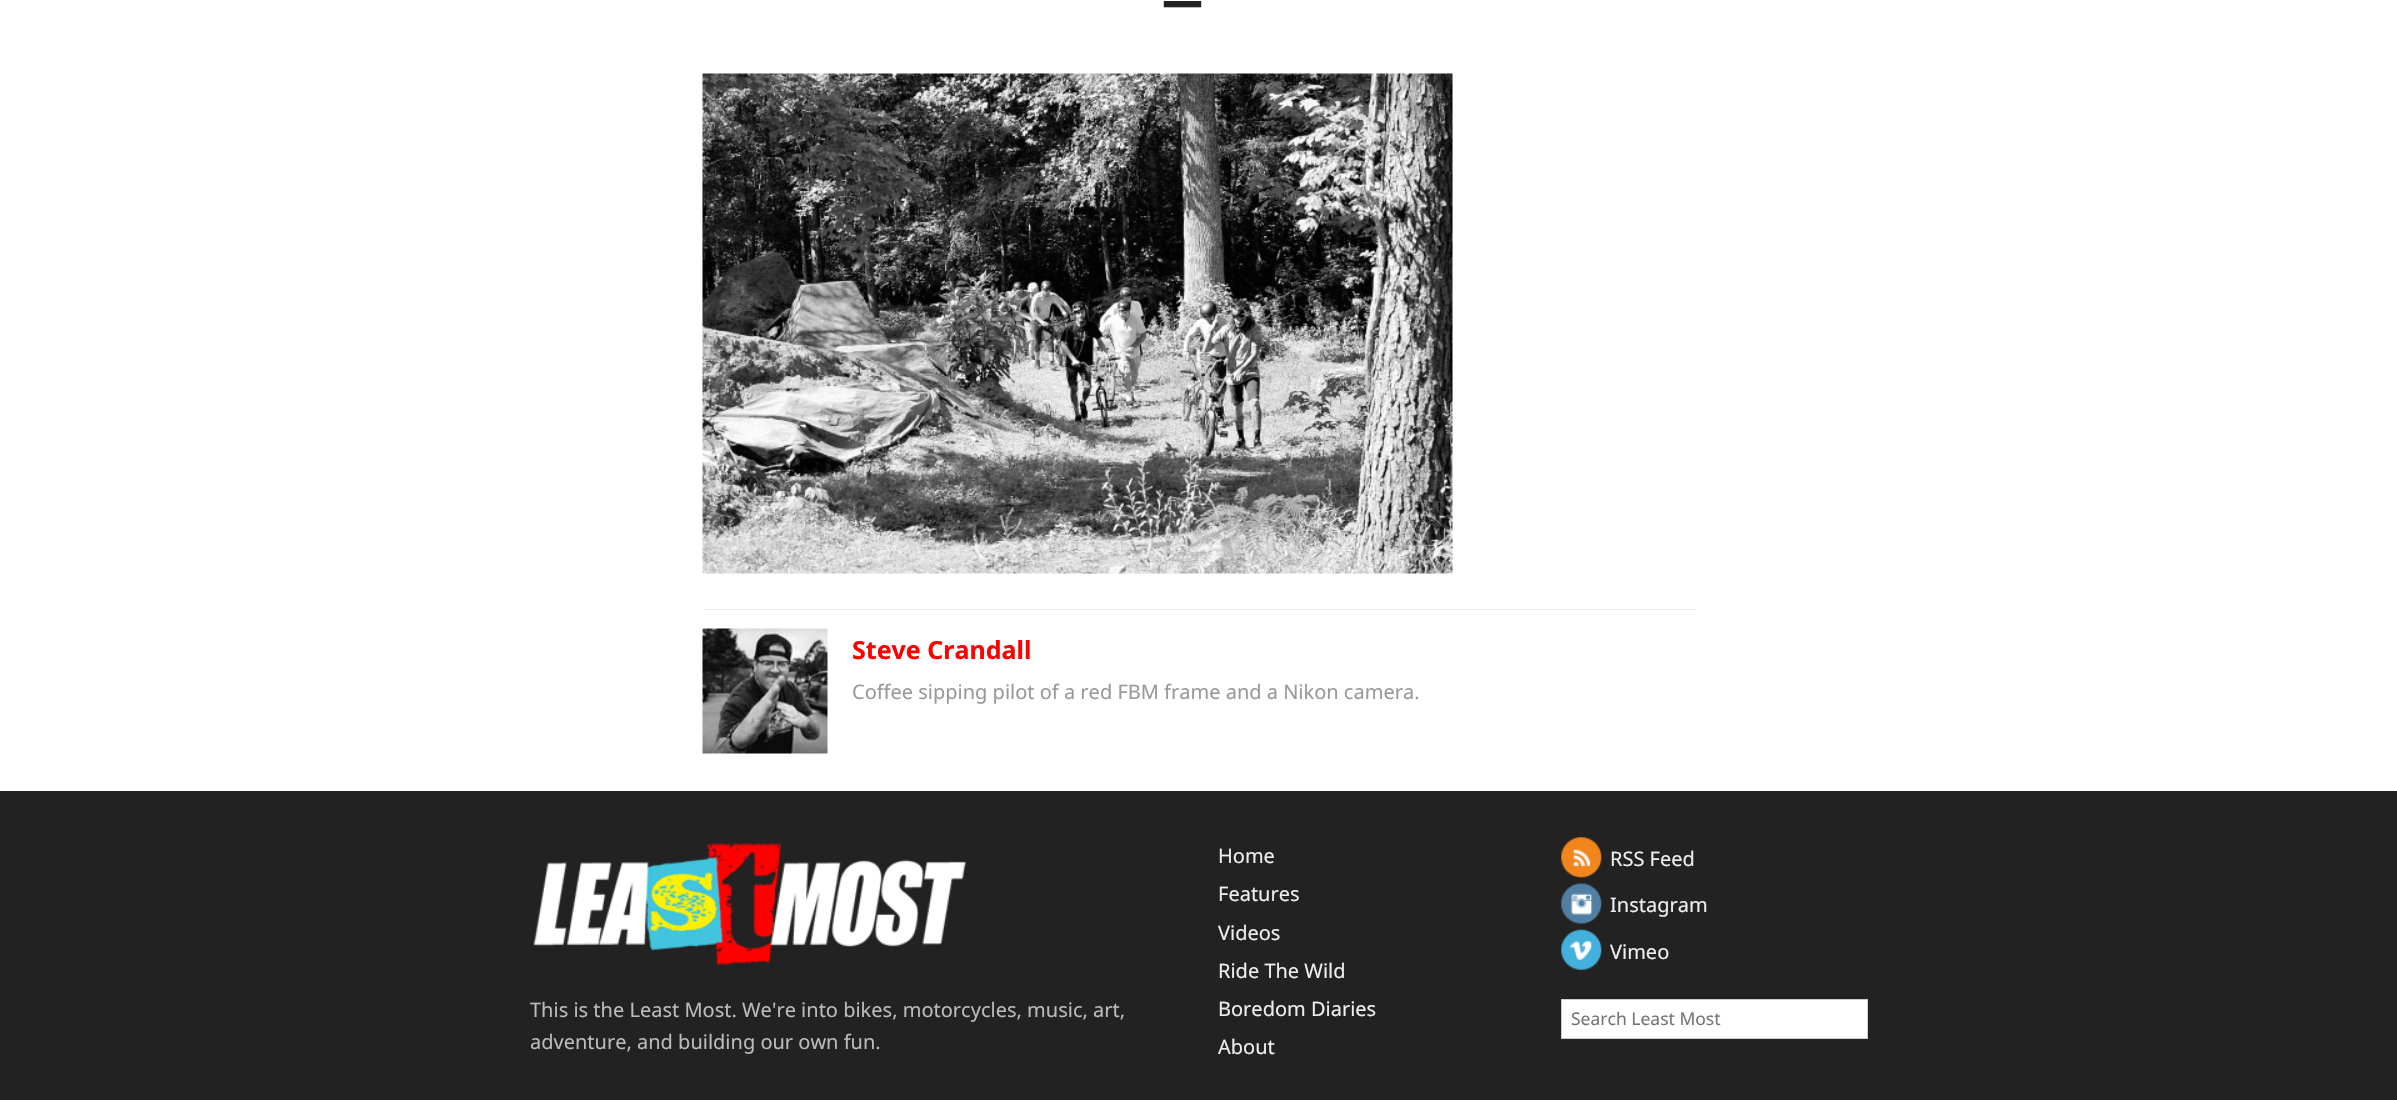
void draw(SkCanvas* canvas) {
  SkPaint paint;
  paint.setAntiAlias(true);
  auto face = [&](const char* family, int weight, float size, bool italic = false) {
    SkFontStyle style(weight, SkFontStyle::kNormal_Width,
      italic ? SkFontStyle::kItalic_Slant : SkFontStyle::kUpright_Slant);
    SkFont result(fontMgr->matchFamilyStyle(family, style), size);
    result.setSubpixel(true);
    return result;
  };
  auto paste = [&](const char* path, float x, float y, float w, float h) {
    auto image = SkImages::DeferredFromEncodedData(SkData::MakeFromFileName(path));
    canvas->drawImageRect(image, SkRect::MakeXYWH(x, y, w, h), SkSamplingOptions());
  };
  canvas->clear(0xffffffff);
  paste("img/1.png", 702, 73, 751, 501);
  paint.setColor(0xffeeeeee);
  canvas->drawRect(SkRect::MakeXYWH(703, 609, 993, 1), paint);
  paste("img/2.png", 702, 628, 126, 126);
  paint.setColor(0xff222222);
  canvas->drawRect(SkRect::MakeXYWH(0, 791, 2397, 309), paint);
  paste("img/3.png", 533, 843, 434, 122);
  paste("img/4.png", 1561, 837, 41, 41);
  paste("img/5.png", 1561, 883, 41, 41);
  paste("img/6.png", 1561, 929, 41, 41);
  paint.setColor(0xffffffff);
  canvas->drawRect(SkRect::MakeXYWH(1561.5f, 999.5f, 306, 39), paint);
  paint.setStroke(true);
  paint.setStrokeWidth(1);
  paint.setColor(0xffcccccc);
  canvas->drawRect(SkRect::MakeXYWH(1561.5f, 999.5f, 306, 39), paint);
  auto f0 = face("Noto Sans", 700, 90);
  paint.setStroke(false);
  paint.setColor(0xff222222);
  canvas->drawString("_", 1164, -7, f0, paint);
  auto f1 = face("Noto Sans", 700, 25);
  paint.setColor(0xffff0000);
  canvas->drawString("Steve Crandall", 852, 659, f1, paint);
  auto f2 = face("Noto Sans", 400, 20);
  paint.setColor(0xff999999);
  canvas->drawString("Coffee sipping pilot of a red FBM frame and a Nikon camera.", 852, 699, f2, paint);
  paint.setColor(0xffbbbbbb);
  canvas->drawString("This is the Least Most. We're into bikes, motorcycles, music, art,", 530, 1017, f2, paint);
  canvas->drawString("adventure, and building our own fun.", 530, 1049, f2, paint);
  paint.setColor(0xffeeeeee);
  {
    const struct { const char* s; float x, y; } items[] = {
      {"Home", 1218, 863},
      {"Features", 1218, 901},
      {"Videos", 1218, 940},
      {"Ride The Wild", 1218, 978},
      {"Boredom Diaries", 1218, 1016},
      {"About", 1218, 1054},
      {"RSS Feed", 1610, 866},
      {"Instagram", 1610, 912},
      {"Vimeo", 1610, 959},
    };
    for (auto [s, x, y] : items) {
      canvas->drawString(s, x, y, f2, paint);
    }
  }
  auto f3 = face("Noto Sans", 400, 17.5f);
  paint.setColor(0xff757575);
  canvas->drawString("Search Least Most", 1571, 1025, f3, paint);
}
